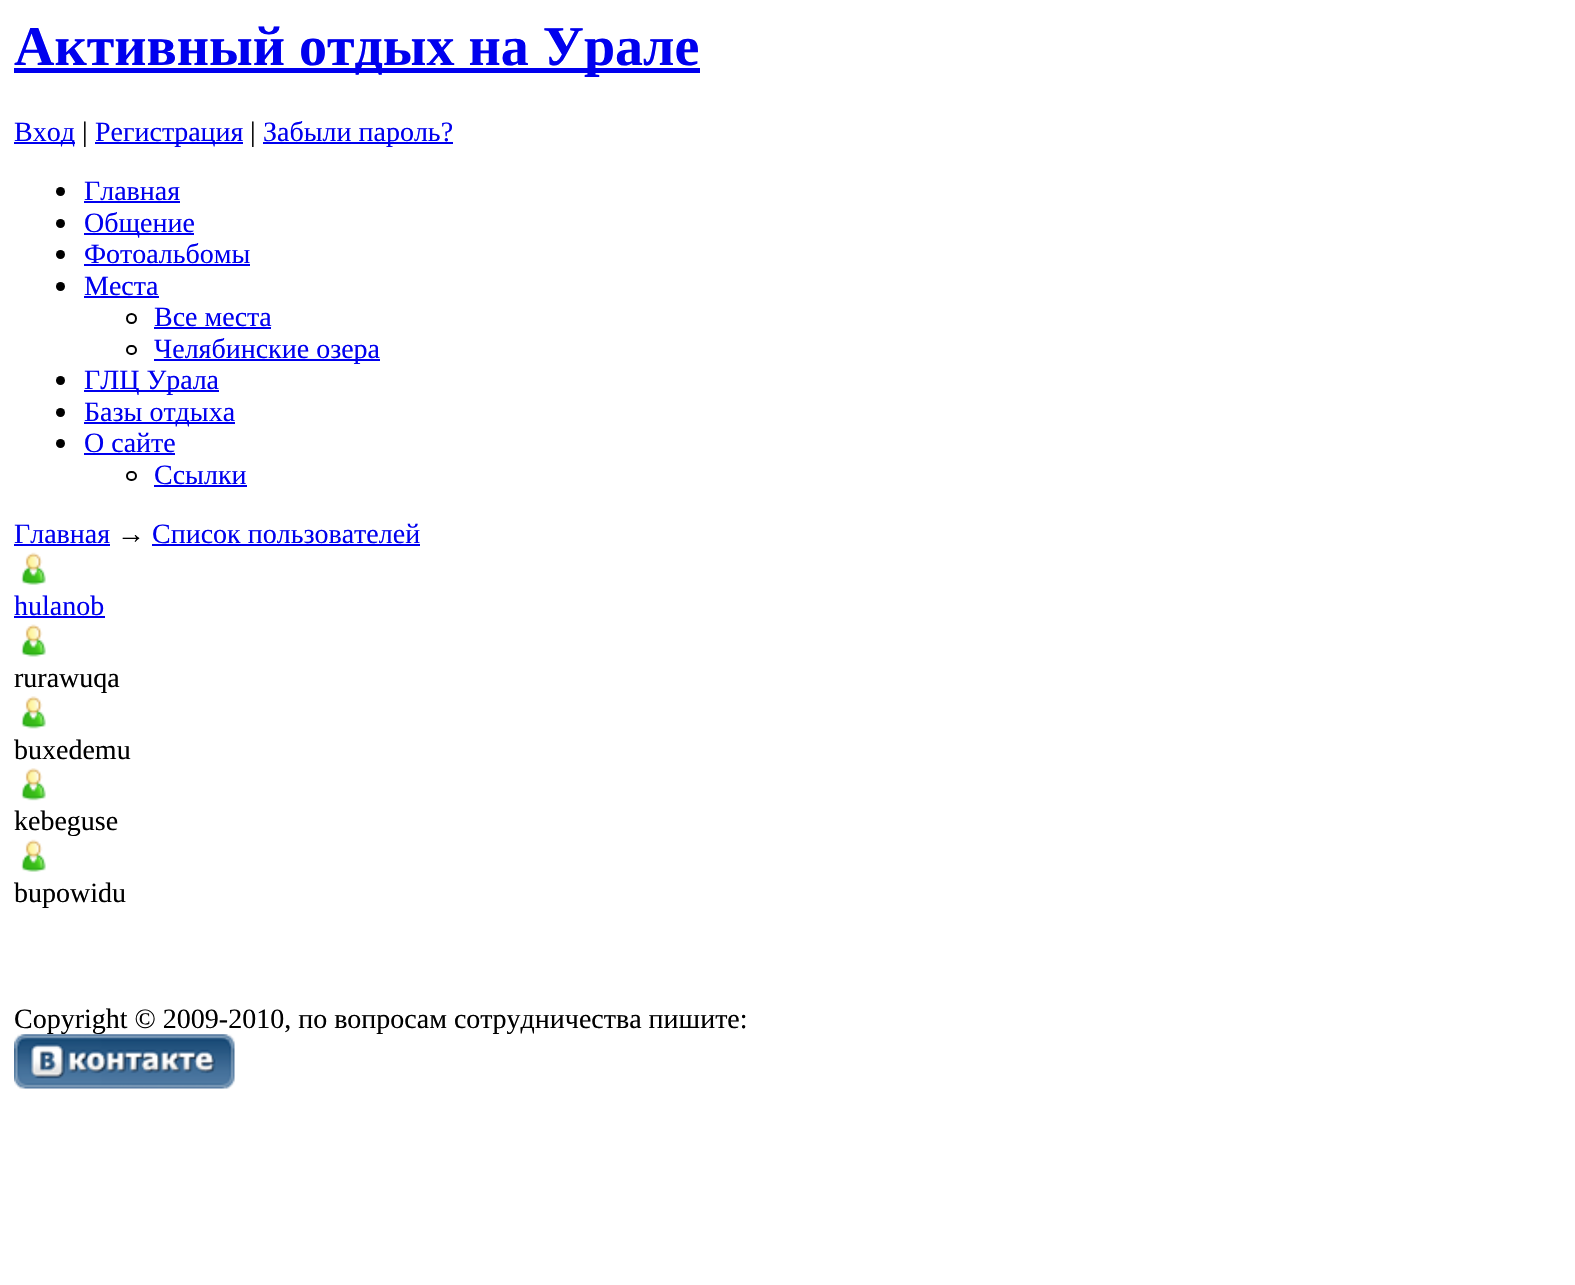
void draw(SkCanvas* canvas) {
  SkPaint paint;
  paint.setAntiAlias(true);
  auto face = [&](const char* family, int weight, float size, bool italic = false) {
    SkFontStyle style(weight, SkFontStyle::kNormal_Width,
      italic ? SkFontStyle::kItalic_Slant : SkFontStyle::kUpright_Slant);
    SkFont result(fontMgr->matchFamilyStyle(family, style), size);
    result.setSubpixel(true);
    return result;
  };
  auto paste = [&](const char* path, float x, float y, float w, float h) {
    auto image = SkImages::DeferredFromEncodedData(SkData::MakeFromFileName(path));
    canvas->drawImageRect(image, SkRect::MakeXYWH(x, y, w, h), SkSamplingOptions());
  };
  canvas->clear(0xffffffff);
  {
    const struct { float x, y, w, h; SkColor color; } items[] = {
      {14, 68, 686, 5, 0xff0000ee},
      {14, 142, 61, 2, 0xff0000ee},
      {95, 142, 148, 2, 0xff0000ee},
      {263, 142, 190, 2, 0xff0000ee},
    };
    for (auto [x, y, w, h, color] : items) {
      paint.setColor(color);
      canvas->drawRect(SkRect::MakeXYWH(x, y, w, h), paint);
    }
  }
  paint.setColor(0xff000000);
  canvas->drawCircle(60.5f, 191.5f, 4.5f, paint);
  paint.setColor(0xff0000ee);
  canvas->drawRect(SkRect::MakeXYWH(84, 201, 96, 2), paint);
  paint.setColor(0xff000000);
  canvas->drawCircle(60.5f, 223.5f, 4.5f, paint);
  paint.setColor(0xff0000ee);
  canvas->drawRect(SkRect::MakeXYWH(84, 233, 110, 2), paint);
  paint.setColor(0xff000000);
  canvas->drawCircle(60.5f, 254.5f, 4.5f, paint);
  paint.setColor(0xff0000ee);
  canvas->drawRect(SkRect::MakeXYWH(84, 264, 166, 2), paint);
  paint.setColor(0xff000000);
  canvas->drawCircle(60.5f, 286.5f, 4.5f, paint);
  paint.setColor(0xff0000ee);
  canvas->drawRect(SkRect::MakeXYWH(84, 296, 75, 2), paint);
  paint.setStroke(true);
  paint.setStrokeWidth(2);
  paint.setColor(0xff000000);
  canvas->drawCircle(131.5f, 318.5f, 4.5f, paint);
  paint.setStroke(false);
  paint.setColor(0xff0000ee);
  canvas->drawRect(SkRect::MakeXYWH(154, 327, 117, 2), paint);
  paint.setStroke(true);
  paint.setColor(0xff000000);
  canvas->drawRoundRect(SkRect::MakeXYWH(127, 346, 9, 8), 4, 4, paint);
  paint.setStroke(false);
  paint.setColor(0xff0000ee);
  canvas->drawRect(SkRect::MakeXYWH(154, 359, 226, 2), paint);
  paint.setColor(0xff000000);
  canvas->drawCircle(60.5f, 380.5f, 4.5f, paint);
  paint.setColor(0xff0000ee);
  canvas->drawRect(SkRect::MakeXYWH(84, 390, 135, 2), paint);
  paint.setColor(0xff000000);
  canvas->drawCircle(60.5f, 412.5f, 4.5f, paint);
  paint.setColor(0xff0000ee);
  canvas->drawRect(SkRect::MakeXYWH(84, 422, 151, 2), paint);
  paint.setColor(0xff000000);
  canvas->drawCircle(60.5f, 443.5f, 4.5f, paint);
  paint.setColor(0xff0000ee);
  canvas->drawRect(SkRect::MakeXYWH(84, 453, 91, 2), paint);
  paint.setStroke(true);
  paint.setColor(0xff000000);
  canvas->drawRoundRect(SkRect::MakeXYWH(127, 472, 9, 8), 4, 4, paint);
  paint.setStroke(false);
  {
    const struct { float x, y, w, h; SkColor color; } items[] = {
      {154, 485, 93, 2, 0xff0000ee},
      {14, 544, 96, 2, 0xff0000ee},
      {152, 544, 268, 2, 0xff0000ee},
    };
    for (auto [x, y, w, h, color] : items) {
      paint.setColor(color);
      canvas->drawRect(SkRect::MakeXYWH(x, y, w, h), paint);
    }
  }
  paste("img/1.png", 21, 552, 25, 33);
  canvas->drawRect(SkRect::MakeXYWH(14, 616, 91, 2), paint);
  paste("img/2.png", 21, 624, 25, 33);
  paste("img/3.png", 21, 696, 25, 33);
  paste("img/4.png", 21, 768, 25, 33);
  paste("img/1.png", 21, 839, 25, 33);
  auto f0 = face("Liberation Serif", 700, 56);
  canvas->drawString("Активный отдых на Урале", 14, 65, f0, paint);
  auto f1 = face("Liberation Serif", 400, 28);
  canvas->drawString("Вход", 14, 141, f1, paint);
  paint.setColor(0xff000000);
  canvas->drawString("|", 82, 141, f1, paint);
  paint.setColor(0xff0000ee);
  canvas->drawString("Регистрация", 95, 141, f1, paint);
  paint.setColor(0xff000000);
  canvas->drawString("|", 250, 141, f1, paint);
  paint.setColor(0xff0000ee);
  {
    const struct { const char* s; float x, y; } items[] = {
      {"Забыли пароль?", 263, 141},
      {"Главная", 84, 200},
      {"Общение", 84, 232},
      {"Фотоальбомы", 84, 263},
      {"Места", 84, 295},
      {"Все места", 154, 326},
      {"Челябинские озера", 154, 358},
      {"ГЛЦ Урала", 84, 389},
      {"Базы отдыха", 84, 421},
      {"О сайте", 84, 452},
      {"Ссылки", 154, 484},
      {"Главная", 14, 543},
    };
    for (auto [s, x, y] : items) {
      canvas->drawString(s, x, y, f1, paint);
    }
  }
  paint.setColor(0xff000000);
  canvas->drawString("→", 117, 543, f1, paint);
  paint.setColor(0xff0000ee);
  canvas->drawString("Список пользователей", 152, 543, f1, paint);
  canvas->drawString("hulanob", 14, 615, f1, paint);
  paint.setColor(0xff000000);
  {
    const struct { const char* s; float x, y; } items[] = {
      {"rurawuqa", 14, 687},
      {"buxedemu", 14, 759},
      {"kebeguse", 14, 830},
      {"bupowidu", 14, 902},
      {"Copyright © 2009-2010, по вопросам сотрудничества пишите:", 14, 1028},
    };
    for (auto [s, x, y] : items) {
      canvas->drawString(s, x, y, f1, paint);
    }
  }
  paste("img/5.png", 14, 1034, 221, 55);
}
